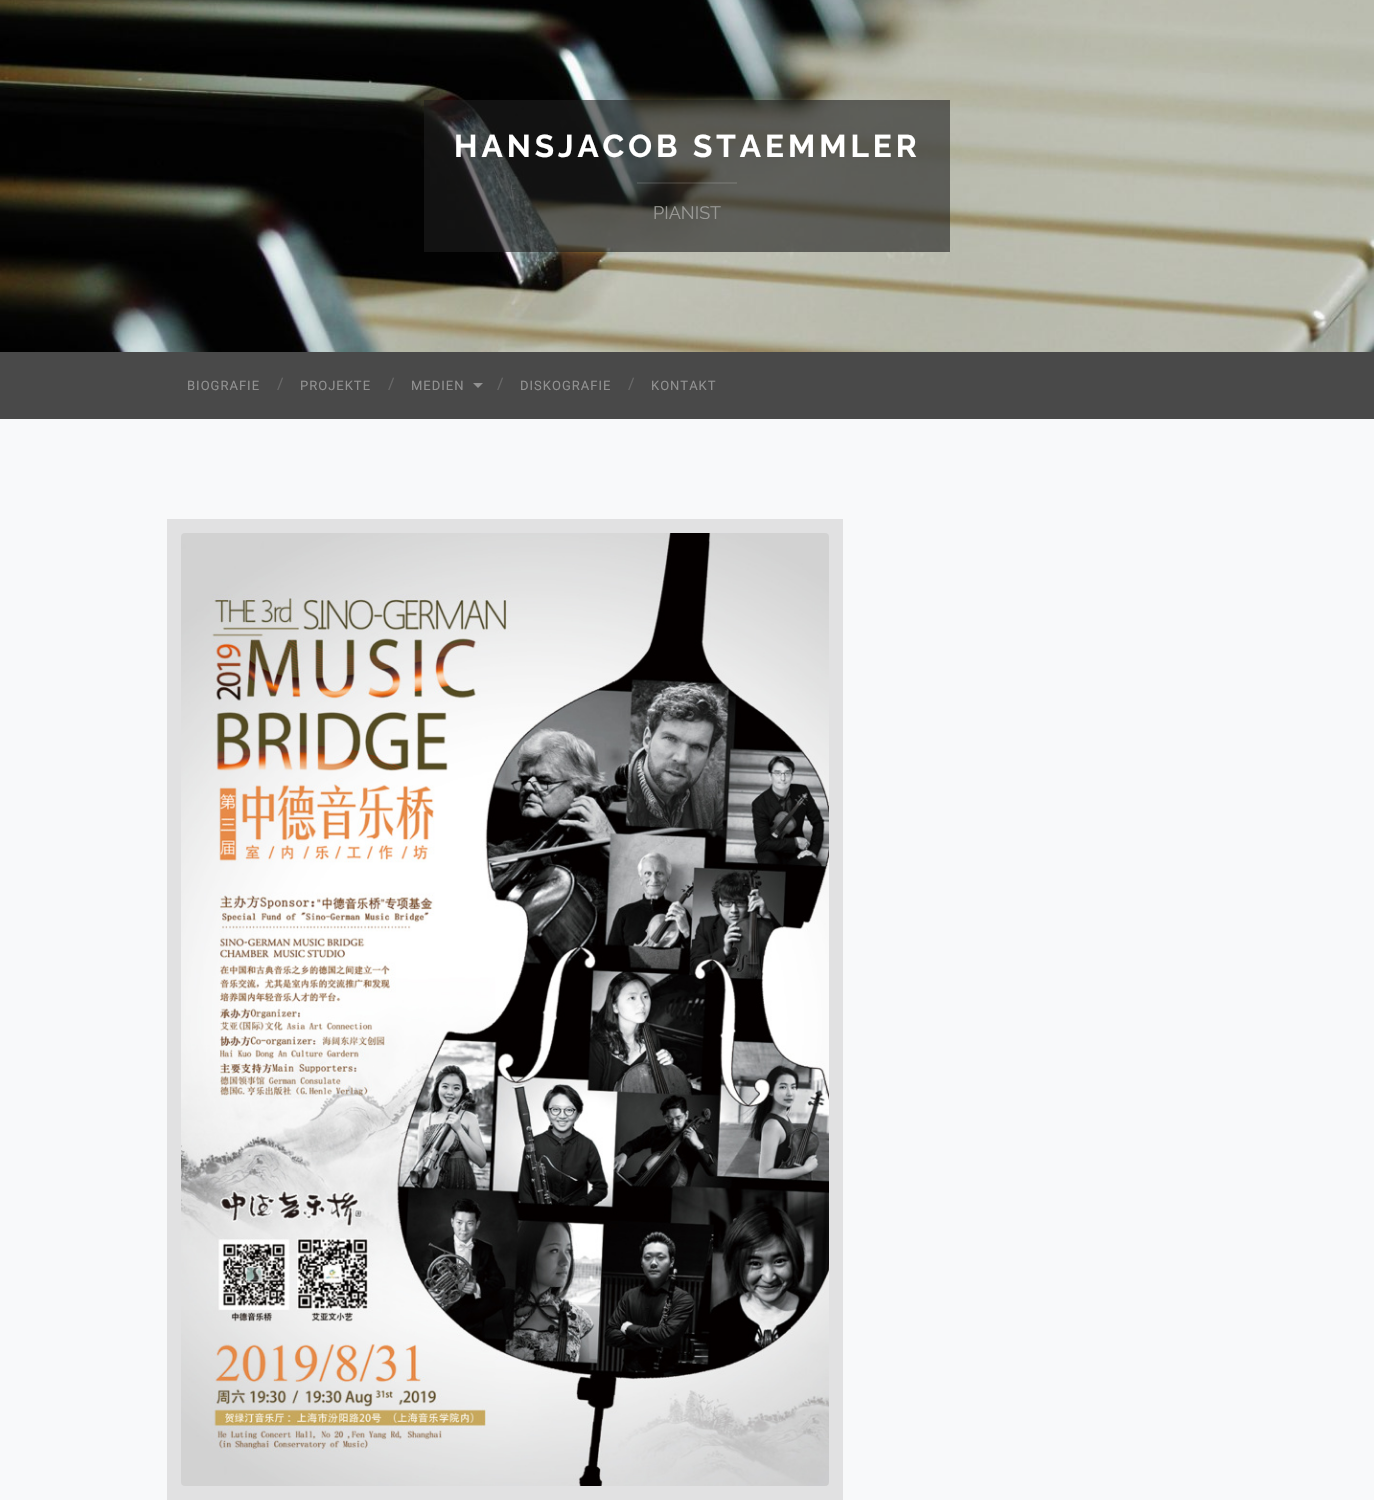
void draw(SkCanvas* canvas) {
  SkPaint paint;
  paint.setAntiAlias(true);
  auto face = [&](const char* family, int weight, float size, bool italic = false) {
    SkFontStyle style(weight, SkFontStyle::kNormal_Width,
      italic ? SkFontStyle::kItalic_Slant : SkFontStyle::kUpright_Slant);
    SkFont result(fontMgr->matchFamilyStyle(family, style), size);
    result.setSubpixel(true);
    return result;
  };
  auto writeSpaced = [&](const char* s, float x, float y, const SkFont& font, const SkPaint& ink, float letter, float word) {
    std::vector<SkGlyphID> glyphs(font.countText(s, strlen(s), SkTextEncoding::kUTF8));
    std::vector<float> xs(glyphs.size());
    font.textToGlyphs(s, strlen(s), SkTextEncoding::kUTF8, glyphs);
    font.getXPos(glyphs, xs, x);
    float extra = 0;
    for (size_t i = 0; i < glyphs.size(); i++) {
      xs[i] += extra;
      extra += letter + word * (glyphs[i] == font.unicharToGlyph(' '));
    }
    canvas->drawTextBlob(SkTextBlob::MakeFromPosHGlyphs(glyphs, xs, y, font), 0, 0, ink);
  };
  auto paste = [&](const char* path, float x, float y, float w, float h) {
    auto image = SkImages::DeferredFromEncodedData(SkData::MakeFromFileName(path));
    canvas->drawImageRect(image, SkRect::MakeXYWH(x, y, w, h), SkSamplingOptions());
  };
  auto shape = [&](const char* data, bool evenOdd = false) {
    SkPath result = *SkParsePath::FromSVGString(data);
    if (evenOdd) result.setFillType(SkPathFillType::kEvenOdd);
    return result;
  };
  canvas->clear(0xfff8f9fa);
  paste("img/1.png", 0, 0, 1374, 352);
  {
    const struct { float x, y, w, h; SkColor color; } items[] = {
      {424, 100, 526, 152, 0x991d1d1d},
      {637, 182, 100, 2, 0x1affffff},
      {0, 352, 1374, 67, 0xff494949},
    };
    for (auto [x, y, w, h, color] : items) {
      paint.setColor(color);
      canvas->drawRect(SkRect::MakeXYWH(x, y, w, h), paint);
    }
  }
  paint.setColor(0xff919191);
  canvas->drawPath(shape("M473 383H483L478 388Z"), paint);
  paint.setColor(0xffe1e1e2);
  canvas->drawRect(SkRect::MakeXYWH(167, 519, 676, 981), paint);
  paste("img/2.png", 181, 533, 648, 953);
  auto f0 = face("Raleway", 700, 31.5f);
  paint.setColor(0xffffffff);
  writeSpaced("HANSJACOB STAEMMLER", 454, 157, f0, paint, 4, 0);
  auto f1 = face("Raleway", 400, 18);
  paint.setColor(0xff989894);
  canvas->drawString("PIANIST", 653, 219, f1, paint);
  auto f2 = face("Roboto", 400, 13);
  paint.setColor(0xff919191);
  writeSpaced("BIOGRAFIE", 187, 390, f2, paint, 1, 0);
  auto f3 = face("Roboto", 400, 16);
  paint.setColor(0xff686868);
  canvas->drawString("/", 277, 389, f3, paint);
  paint.setColor(0xff919191);
  writeSpaced("PROJEKTE", 300, 390, f2, paint, 1, 0);
  paint.setColor(0xff686868);
  canvas->drawString("/", 388, 389, f3, paint);
  paint.setColor(0xff919191);
  writeSpaced("MEDIEN", 411, 390, f2, paint, 1, 0);
  paint.setColor(0xff686868);
  canvas->drawString("/", 497, 389, f3, paint);
  paint.setColor(0xff919191);
  writeSpaced("DISKOGRAFIE", 520, 390, f2, paint, 1, 0);
  paint.setColor(0xff686868);
  canvas->drawString("/", 628, 389, f3, paint);
  paint.setColor(0xff919191);
  writeSpaced("KONTAKT", 651, 390, f2, paint, 1, 0);
}
